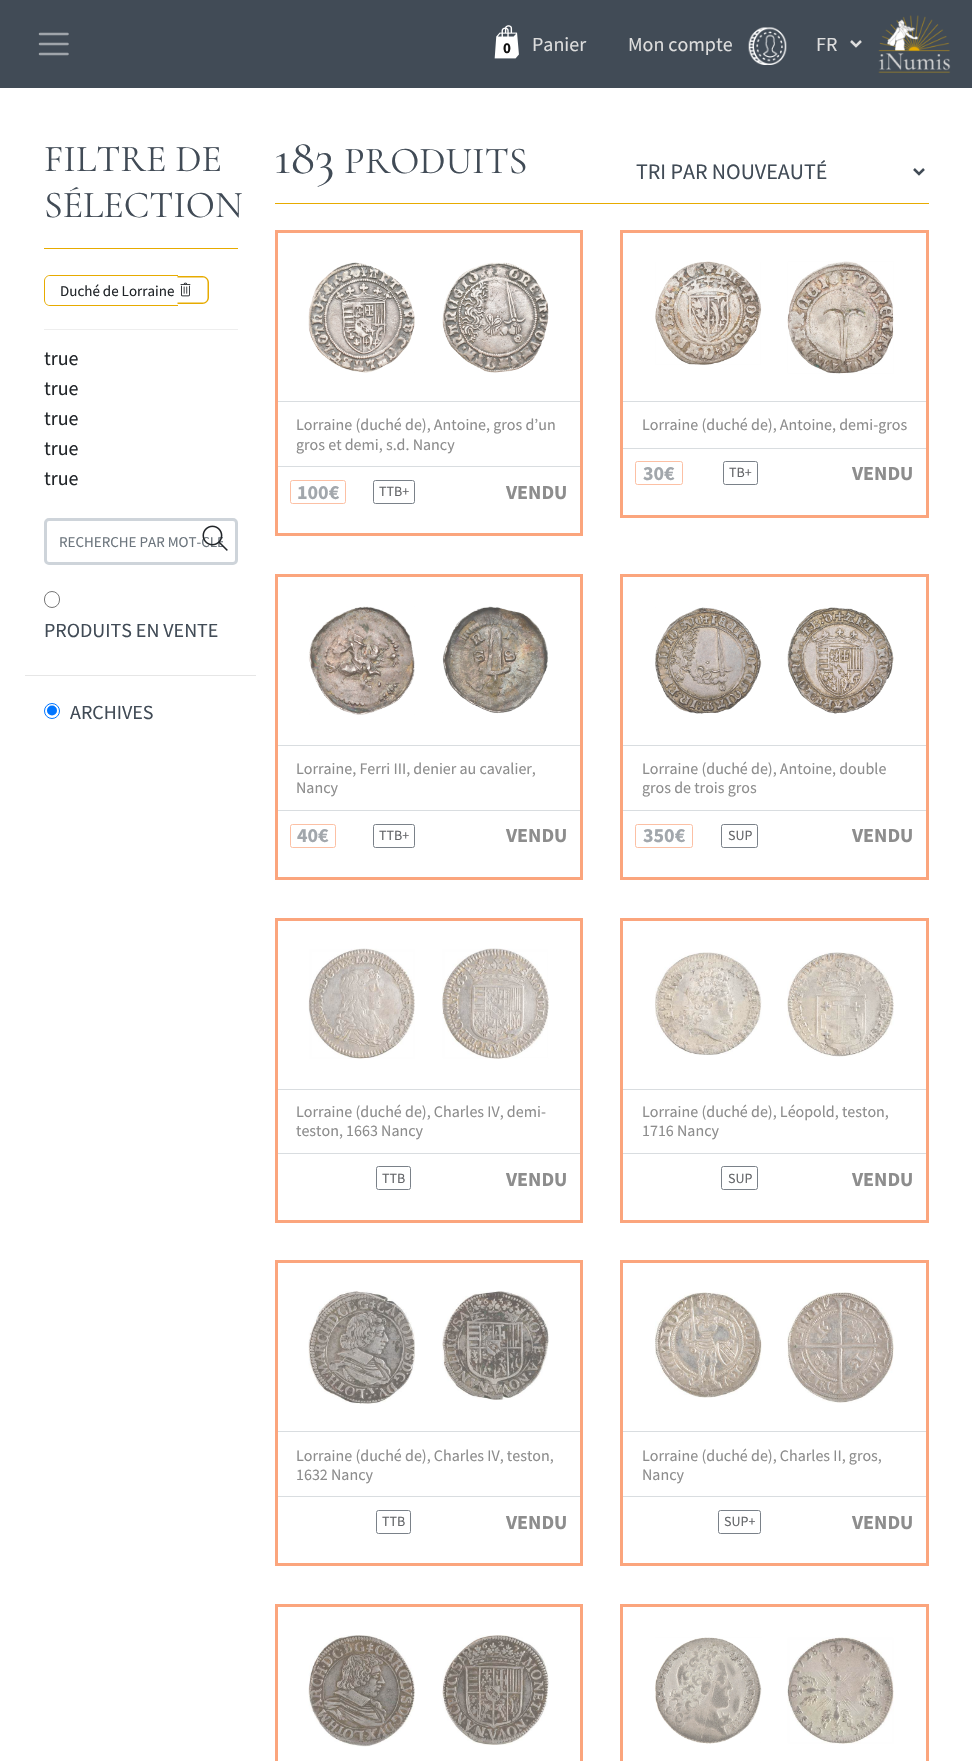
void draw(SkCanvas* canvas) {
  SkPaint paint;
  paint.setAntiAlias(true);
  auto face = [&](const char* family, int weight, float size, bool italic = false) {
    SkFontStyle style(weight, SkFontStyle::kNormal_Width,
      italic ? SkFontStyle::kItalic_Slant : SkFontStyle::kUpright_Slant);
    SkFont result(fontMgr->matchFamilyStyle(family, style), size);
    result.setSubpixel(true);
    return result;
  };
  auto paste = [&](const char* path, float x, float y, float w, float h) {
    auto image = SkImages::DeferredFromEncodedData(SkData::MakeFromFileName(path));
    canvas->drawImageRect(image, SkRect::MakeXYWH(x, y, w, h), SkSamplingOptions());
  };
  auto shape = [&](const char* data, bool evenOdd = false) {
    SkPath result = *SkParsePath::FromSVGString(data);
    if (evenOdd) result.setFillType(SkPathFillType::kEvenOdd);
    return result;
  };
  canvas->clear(0xffffffff);
  paint.setColor(0xff414b56);
  canvas->drawRect(SkRect::MakeXYWH(0, 0, 972, 88), paint);
  paint.setStroke(true);
  paint.setStrokeWidth(2.5f);
  paint.setStrokeCap(SkPaint::kRound_Cap);
  paint.setColor(0xffa0a5ab);
  canvas->drawPath(shape("M40 34H67.5M40 44H67.5M40 54H67.5"), paint);
  paste("img/1.png", 494, 25, 25, 34);
  paste("img/2.png", 748, 27, 39, 38);
  paint.setStrokeCap(SkPaint::kButt_Cap);
  paint.setColor(0xffdddddd);
  canvas->drawPath(shape("M851 41L856 46L861 41"), paint);
  paste("img/3.png", 878, 15, 73, 58);
  paint.setStroke(false);
  paint.setColor(0xffe7ab00);
  canvas->drawRect(SkRect::MakeXYWH(44, 248, 194, 1), paint);
  paint.setColor(0xffeeeeee);
  canvas->drawRect(SkRect::MakeXYWH(44, 329, 194, 1), paint);
  paint.setColor(0xffe7ab00);
  canvas->drawPath(shape("M50 275H178V306H50C47 306 44 303 44 300V281C44 278 47 275 50 275ZM50 276H178V305H50C47 305 45 303 45 300V281C45 278 47 276 50 276Z", true), paint);
  canvas->drawPath(shape("M177.5 276H202.5C206 276 209 279 209 282.5V297.5C209 301 206 304 202.5 304H177.5ZM177.5 277.5H202.5C205.5 277.5 207.5 279.5 207.5 282.5V297.5C207.5 300.5 205.5 302.5 202.5 302.5H177.5Z", true), paint);
  paste("img/4.png", 180, 282, 11, 15);
  paint.setStroke(true);
  paint.setStrokeWidth(3);
  paint.setColor(0xffced4da);
  canvas->drawRoundRect(SkRect::MakeXYWH(45.5f, 519.5f, 191, 44), 3.5f, 3.5f, paint);
  paint.setStrokeWidth(1);
  paint.setColor(0xff767676);
  canvas->drawRoundRect(SkRect::MakeXYWH(44.5f, 591.5f, 15, 16), 7.5f, 7.5f, paint);
  paint.setStroke(false);
  paint.setColor(0xffe6e6e6);
  canvas->drawRect(SkRect::MakeXYWH(25, 675, 231, 1), paint);
  paint.setStroke(true);
  paint.setColor(0xff0075ff);
  canvas->drawCircle(52, 711, 7.5f, paint);
  paint.setStroke(false);
  canvas->drawCircle(52, 710.5f, 5, paint);
  paint.setColor(0xffe7ab00);
  canvas->drawRect(SkRect::MakeXYWH(275, 203, 654, 1), paint);
  paint.setStroke(true);
  paint.setStrokeWidth(2.5f);
  paint.setColor(0xff414b56);
  canvas->drawPath(shape("M914 169L919 174L924 169"), paint);
  paint.setStrokeWidth(3);
  paint.setColor(0xfffba57d);
  canvas->drawRect(SkRect::MakeXYWH(276.5f, 231.5f, 305, 303), paint);
  paint.setStroke(false);
  paint.setColor(0xffd9dde0);
  canvas->drawRect(SkRect::MakeXYWH(278, 401, 302, 1), paint);
  paste("img/6.png", 308, 262, 107, 111);
  paste("img/7.png", 442, 262, 107, 111);
  canvas->drawRect(SkRect::MakeXYWH(278, 466, 302, 1), paint);
  paint.setStroke(true);
  paint.setStrokeWidth(1);
  paint.setColor(0xfffcc0a4);
  canvas->drawRoundRect(SkRect::MakeXYWH(290.5f, 480.5f, 55, 23), 2, 2, paint);
  paint.setColor(0xff7a8189);
  canvas->drawRoundRect(SkRect::MakeXYWH(373.5f, 480.5f, 41, 23), 2, 2, paint);
  paint.setStrokeWidth(3);
  paint.setColor(0xfffba57d);
  canvas->drawRect(SkRect::MakeXYWH(621.5f, 231.5f, 306, 285), paint);
  paint.setStroke(false);
  paint.setColor(0xffd9dde0);
  canvas->drawRect(SkRect::MakeXYWH(623, 401, 303, 1), paint);
  paste("img/8.png", 655, 261, 107, 104);
  paste("img/9.png", 787, 261, 107, 113);
  canvas->drawRect(SkRect::MakeXYWH(623, 448, 303, 1), paint);
  paint.setStroke(true);
  paint.setStrokeWidth(1);
  paint.setColor(0xfffcc0a4);
  canvas->drawRoundRect(SkRect::MakeXYWH(635.5f, 461.5f, 47, 23), 2, 2, paint);
  paint.setColor(0xff7a8189);
  canvas->drawRoundRect(SkRect::MakeXYWH(723.5f, 461.5f, 34, 23), 2, 2, paint);
  paint.setStrokeWidth(3);
  paint.setColor(0xfffba57d);
  canvas->drawRect(SkRect::MakeXYWH(276.5f, 575.5f, 305, 303), paint);
  paint.setStroke(false);
  paint.setColor(0xffd9dde0);
  canvas->drawRect(SkRect::MakeXYWH(278, 745, 302, 1), paint);
  paste("img/10.png", 308, 606, 107, 109);
  paste("img/11.png", 442, 606, 107, 108);
  canvas->drawRect(SkRect::MakeXYWH(278, 810, 302, 1), paint);
  paint.setStroke(true);
  paint.setStrokeWidth(1);
  paint.setColor(0xfffcc0a4);
  canvas->drawRoundRect(SkRect::MakeXYWH(290.5f, 824.5f, 45, 23), 2, 2, paint);
  paint.setColor(0xff7a8189);
  canvas->drawRoundRect(SkRect::MakeXYWH(373.5f, 824.5f, 41, 23), 2, 2, paint);
  paint.setStrokeWidth(3);
  paint.setColor(0xfffba57d);
  canvas->drawRect(SkRect::MakeXYWH(621.5f, 575.5f, 306, 303), paint);
  paint.setStroke(false);
  paint.setColor(0xffd9dde0);
  canvas->drawRect(SkRect::MakeXYWH(623, 745, 303, 1), paint);
  paste("img/12.png", 655, 607, 107, 107);
  paste("img/13.png", 787, 607, 107, 107);
  canvas->drawRect(SkRect::MakeXYWH(623, 810, 303, 1), paint);
  paint.setStroke(true);
  paint.setStrokeWidth(1);
  paint.setColor(0xfffcc0a4);
  canvas->drawRoundRect(SkRect::MakeXYWH(635.5f, 824.5f, 57, 23), 2, 2, paint);
  paint.setColor(0xff7a8189);
  canvas->drawRoundRect(SkRect::MakeXYWH(721.5f, 824.5f, 36, 23), 2, 2, paint);
  paint.setStrokeWidth(3);
  paint.setColor(0xfffba57d);
  canvas->drawRect(SkRect::MakeXYWH(276.5f, 919.5f, 305, 302), paint);
  paint.setStroke(false);
  paint.setColor(0xffd9dde0);
  canvas->drawRect(SkRect::MakeXYWH(278, 1089, 302, 1), paint);
  paste("img/14.png", 308, 948, 107, 111);
  paste("img/15.png", 442, 948, 107, 111);
  canvas->drawRect(SkRect::MakeXYWH(278, 1153, 302, 1), paint);
  paint.setStroke(true);
  paint.setStrokeWidth(1);
  paint.setColor(0xff7a8189);
  canvas->drawRoundRect(SkRect::MakeXYWH(376.5f, 1166.5f, 34, 23), 2, 2, paint);
  paint.setStrokeWidth(3);
  paint.setColor(0xfffba57d);
  canvas->drawRect(SkRect::MakeXYWH(621.5f, 919.5f, 306, 302), paint);
  paint.setStroke(false);
  paint.setColor(0xffd9dde0);
  canvas->drawRect(SkRect::MakeXYWH(623, 1089, 303, 1), paint);
  paste("img/16.png", 655, 952, 107, 103);
  paste("img/17.png", 787, 952, 107, 105);
  canvas->drawRect(SkRect::MakeXYWH(623, 1153, 303, 1), paint);
  paint.setStroke(true);
  paint.setStrokeWidth(1);
  paint.setColor(0xff7a8189);
  canvas->drawRoundRect(SkRect::MakeXYWH(721.5f, 1166.5f, 36, 23), 2, 2, paint);
  paint.setStrokeWidth(3);
  paint.setColor(0xfffba57d);
  canvas->drawRect(SkRect::MakeXYWH(276.5f, 1261.5f, 305, 303), paint);
  paint.setStroke(false);
  paint.setColor(0xffd9dde0);
  canvas->drawRect(SkRect::MakeXYWH(278, 1431, 302, 1), paint);
  paste("img/18.png", 308, 1291, 107, 113);
  paste("img/19.png", 442, 1291, 107, 109);
  canvas->drawRect(SkRect::MakeXYWH(278, 1496, 302, 1), paint);
  paint.setStroke(true);
  paint.setStrokeWidth(1);
  paint.setColor(0xff7a8189);
  canvas->drawRoundRect(SkRect::MakeXYWH(376.5f, 1510.5f, 34, 23), 2, 2, paint);
  paint.setStrokeWidth(3);
  paint.setColor(0xfffba57d);
  canvas->drawRect(SkRect::MakeXYWH(621.5f, 1261.5f, 306, 303), paint);
  paint.setStroke(false);
  paint.setColor(0xffd9dde0);
  canvas->drawRect(SkRect::MakeXYWH(623, 1431, 303, 1), paint);
  paste("img/20.png", 655, 1292, 107, 106);
  paste("img/21.png", 787, 1292, 107, 111);
  canvas->drawRect(SkRect::MakeXYWH(623, 1496, 303, 1), paint);
  paint.setStroke(true);
  paint.setStrokeWidth(1);
  paint.setColor(0xff7a8189);
  canvas->drawRoundRect(SkRect::MakeXYWH(718.5f, 1510.5f, 42, 23), 2, 2, paint);
  paint.setStrokeWidth(3);
  paint.setColor(0xfffba57d);
  canvas->drawRect(SkRect::MakeXYWH(276.5f, 1605.5f, 305, 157), paint);
  paste("img/22.png", 308, 1635, 107, 112);
  paste("img/23.png", 442, 1635, 107, 110);
  canvas->drawRect(SkRect::MakeXYWH(621.5f, 1605.5f, 306, 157), paint);
  paste("img/24.png", 655, 1637, 107, 107);
  paste("img/25.png", 787, 1637, 107, 107);
  auto f0 = face("Source Sans Pro", 400, 20);
  paint.setStroke(false);
  paint.setColor(0xffdddddd);
  canvas->drawString("Panier", 532, 51, f0, paint);
  auto f1 = face("Source Sans Pro", 700, 15);
  paint.setColor(0xff111111);
  canvas->drawString("0", 503, 53, f1, paint);
  paint.setColor(0xffdddddd);
  canvas->drawString("Mon compte", 628, 51, f0, paint);
  canvas->drawString("FR", 816, 51, f0, paint);
  auto f2 = face("Cormorant", 400, 38);
  paint.setColor(0xff414b56);
  canvas->drawString("FILTRE DE", 44, 171, f2, paint);
  canvas->drawString("SÉLECTION", 44, 217, f2, paint);
  auto f3 = face("Source Sans Pro", 400, 15);
  paint.setColor(0xff212529);
  canvas->drawString("Duché de Lorraine", 60, 296, f3, paint);
  {
    const struct { const char* s; float x, y; } items[] = {
      {"true", 44, 365},
      {"true", 44, 395},
      {"true", 44, 425},
      {"true", 44, 455},
      {"true", 44, 485},
    };
    for (auto [s, x, y] : items) {
      canvas->drawString(s, x, y, f0, paint);
    }
  }
  canvas->save();
  canvas->clipRect(SkRect::MakeXYWH(59, 531, 164, 19));
  paint.setColor(0xff6c757d);
  canvas->drawString("RECHERCHE PAR MOT-CLE", 59, 547, f3, paint);
  canvas->restore();
  paste("img/5.png", 202, 525, 26, 26);
  paint.setColor(0xff414b56);
  canvas->drawString("PRODUITS EN VENTE", 44, 637, f0, paint);
  canvas->drawString("ARCHIVES", 70, 719, f0, paint);
  auto f4 = face("Cormorant", 400, 50);
  canvas->drawString("183", 274, 173, f4, paint);
  canvas->drawString("PRODUITS", 344, 173, f2, paint);
  auto f5 = face("Source Sans Pro", 400, 22);
  canvas->drawString("TRI PAR NOUVEAUTÉ", 636, 179, f5, paint);
  auto f6 = face("Source Sans Pro", 400, 16);
  paint.setColor(0xff8d8d8d);
  canvas->drawString("Lorraine (duché de), Antoine, gros d’un", 296, 430, f6, paint);
  canvas->drawString("gros et demi, s.d. Nancy", 296, 450, f6, paint);
  auto f7 = face("Source Sans Pro", 700, 20);
  paint.setColor(0xffa2a7ac);
  canvas->drawString("100€", 297, 499, f7, paint);
  auto f8 = face("Source Sans Pro", 400, 14);
  paint.setColor(0xff646669);
  canvas->drawString("TTB+", 379, 496, f8, paint);
  paint.setColor(0xff8d8d8d);
  canvas->drawString("VENDU", 506, 499, f7, paint);
  canvas->drawString("Lorraine (duché de), Antoine, demi-gros", 642, 430, f6, paint);
  paint.setColor(0xffa2a7ac);
  canvas->drawString("30€", 643, 480, f7, paint);
  paint.setColor(0xff646669);
  canvas->drawString("TB+", 729, 477, f8, paint);
  paint.setColor(0xff8d8d8d);
  canvas->drawString("VENDU", 852, 480, f7, paint);
  canvas->drawString("Lorraine, Ferri III, denier au cavalier,", 296, 774, f6, paint);
  canvas->drawString("Nancy", 296, 793, f6, paint);
  paint.setColor(0xffa2a7ac);
  canvas->drawString("40€", 297, 842, f7, paint);
  paint.setColor(0xff646669);
  canvas->drawString("TTB+", 379, 840, f8, paint);
  paint.setColor(0xff8d8d8d);
  canvas->drawString("VENDU", 506, 842, f7, paint);
  canvas->drawString("Lorraine (duché de), Antoine, double", 642, 774, f6, paint);
  canvas->drawString("gros de trois gros", 642, 793, f6, paint);
  paint.setColor(0xffa2a7ac);
  canvas->drawString("350€", 643, 842, f7, paint);
  paint.setColor(0xff646669);
  canvas->drawString("SUP", 728, 840, f8, paint);
  paint.setColor(0xff8d8d8d);
  canvas->drawString("VENDU", 852, 842, f7, paint);
  canvas->drawString("Lorraine (duché de), Charles IV, demi-", 296, 1117, f6, paint);
  canvas->drawString("teston, 1663 Nancy", 296, 1136, f6, paint);
  paint.setColor(0xff646669);
  canvas->drawString("TTB", 382, 1183, f8, paint);
  paint.setColor(0xff8d8d8d);
  canvas->drawString("VENDU", 506, 1186, f7, paint);
  canvas->drawString("Lorraine (duché de), Léopold, teston,", 642, 1117, f6, paint);
  canvas->drawString("1716 Nancy", 642, 1136, f6, paint);
  paint.setColor(0xff646669);
  canvas->drawString("SUP", 728, 1183, f8, paint);
  paint.setColor(0xff8d8d8d);
  canvas->drawString("VENDU", 852, 1186, f7, paint);
  canvas->drawString("Lorraine (duché de), Charles IV, teston,", 296, 1461, f6, paint);
  canvas->drawString("1632 Nancy", 296, 1480, f6, paint);
  paint.setColor(0xff646669);
  canvas->drawString("TTB", 382, 1526, f8, paint);
  paint.setColor(0xff8d8d8d);
  canvas->drawString("VENDU", 506, 1529, f7, paint);
  canvas->drawString("Lorraine (duché de), Charles II, gros,", 642, 1461, f6, paint);
  canvas->drawString("Nancy", 642, 1480, f6, paint);
  paint.setColor(0xff646669);
  canvas->drawString("SUP+", 724, 1526, f8, paint);
  paint.setColor(0xff8d8d8d);
  canvas->drawString("VENDU", 852, 1529, f7, paint);
}
